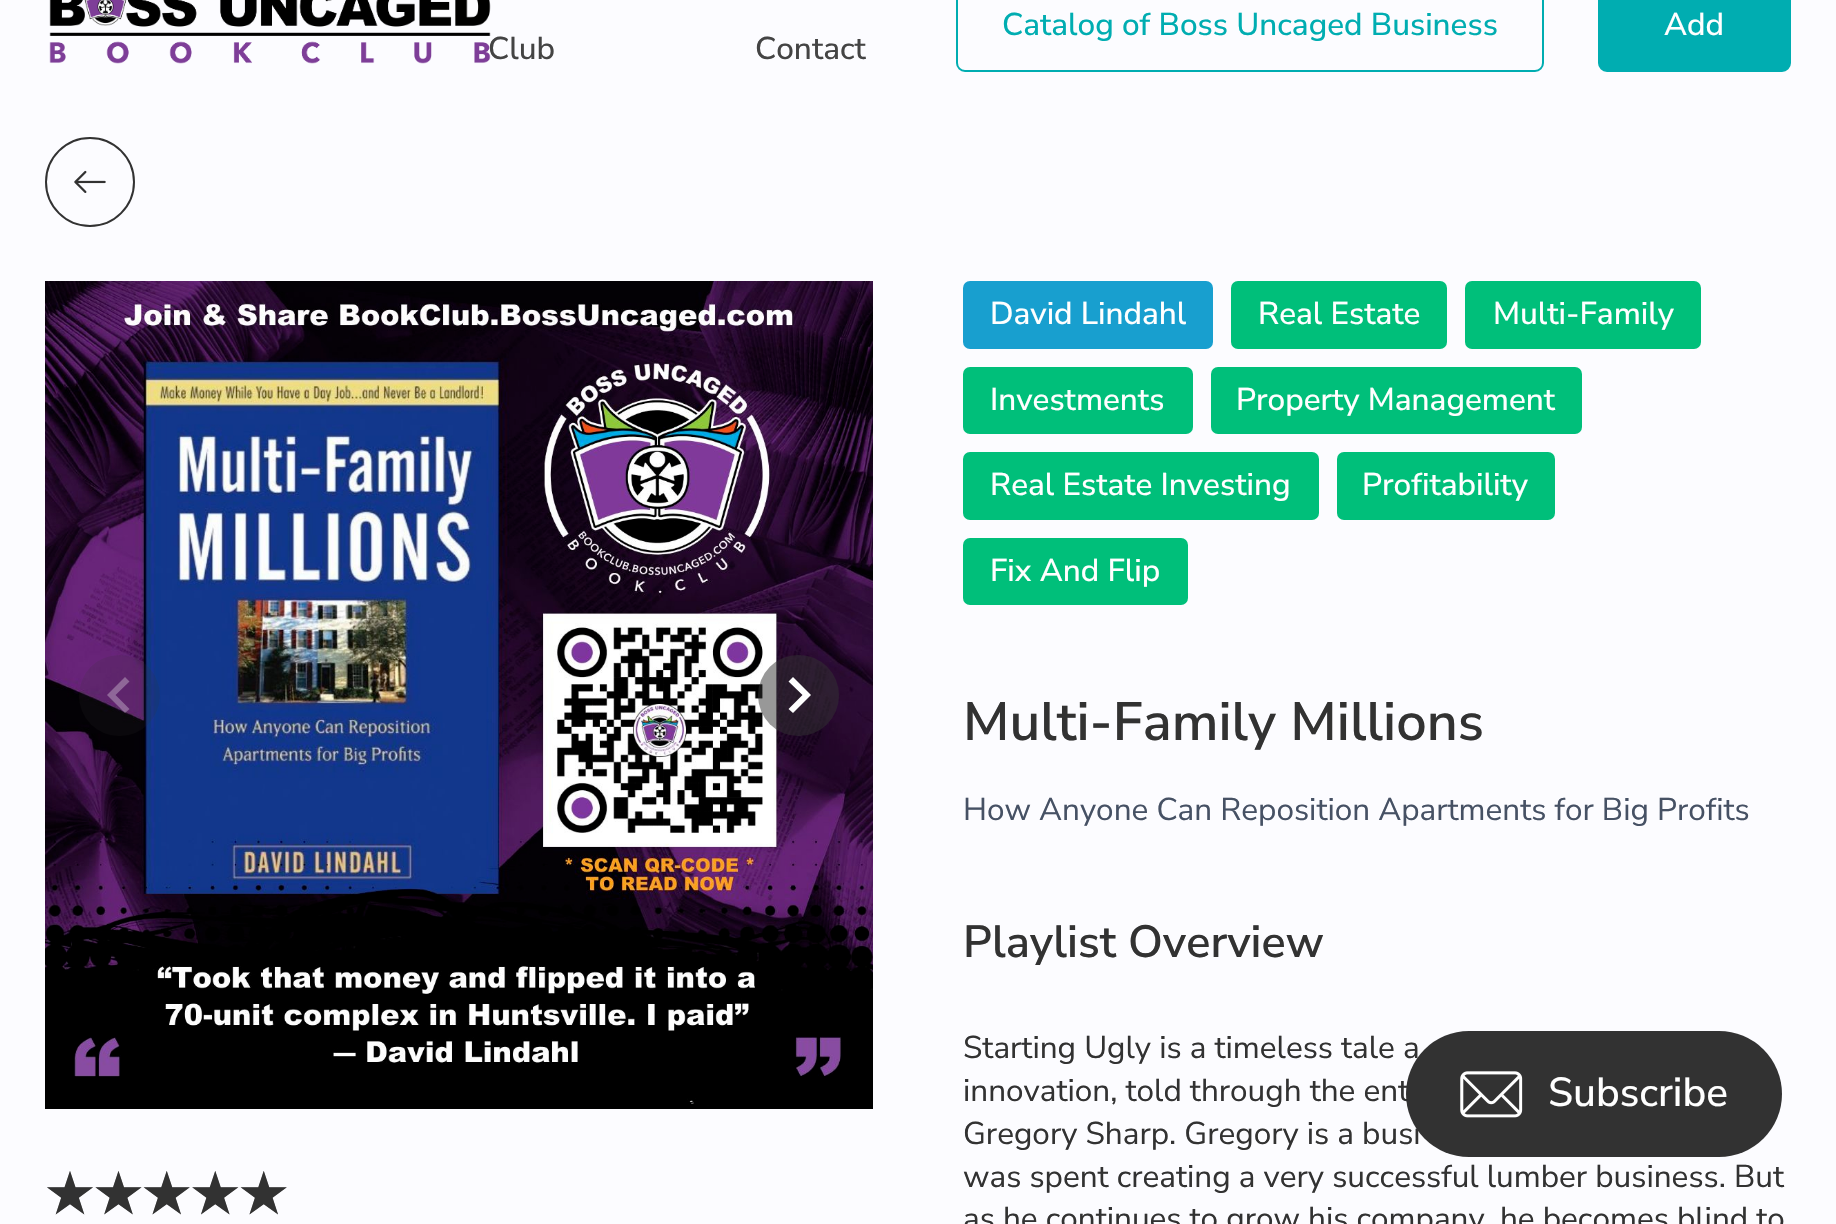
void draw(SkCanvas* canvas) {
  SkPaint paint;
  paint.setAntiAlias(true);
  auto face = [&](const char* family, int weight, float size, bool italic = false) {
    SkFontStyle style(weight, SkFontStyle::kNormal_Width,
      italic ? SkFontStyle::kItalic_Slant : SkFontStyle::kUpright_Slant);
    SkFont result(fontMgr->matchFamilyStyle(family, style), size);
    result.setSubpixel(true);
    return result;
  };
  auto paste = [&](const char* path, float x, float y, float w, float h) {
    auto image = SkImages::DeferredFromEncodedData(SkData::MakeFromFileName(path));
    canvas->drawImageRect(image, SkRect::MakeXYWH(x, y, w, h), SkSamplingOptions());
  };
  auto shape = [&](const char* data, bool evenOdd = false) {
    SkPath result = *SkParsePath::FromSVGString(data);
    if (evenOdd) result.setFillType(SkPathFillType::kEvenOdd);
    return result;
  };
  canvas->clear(0xfffcfcff);
  paste("img/1.png", 49, 0, 442, 64);
  paint.setStroke(true);
  paint.setStrokeWidth(2);
  paint.setColor(0xff00adb1);
  canvas->drawRoundRect(SkRect::MakeXYWH(957, -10, 586, 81), 8, 8, paint);
  paint.setStroke(false);
  canvas->drawRoundRect(SkRect::MakeXYWH(1599, -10, 191, 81), 8, 8, paint);
  paint.setStroke(true);
  canvas->drawRoundRect(SkRect::MakeXYWH(1599, -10, 191, 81), 8, 8, paint);
  paint.setColor(0xff323232);
  canvas->drawCircle(90, 182, 44, paint);
  paste("img/2.png", 74, 170, 32, 23);
  paste("img/3.png", 45, 281, 828, 828);
  paint.setStroke(false);
  paint.setColor(0x26323232);
  canvas->drawCircle(119.5f, 695.5f, 40.5f, paint);
  paint.setColor(0x4dffffff);
  canvas->drawPath(shape("M129.5 709L115.5 695L129.5 681.5L125 677L107 695L125 713Z"), paint);
  paint.setColor(0x80323232);
  canvas->drawCircle(798.5f, 695.5f, 40.5f, paint);
  paint.setColor(0xffffffff);
  canvas->drawPath(shape("M788.5 709L802.5 695L788.5 681.5L793 677L811 695L793 713Z"), paint);
  paint.setColor(0xff189fcf);
  canvas->drawRoundRect(SkRect::MakeXYWH(963, 281, 250, 68), 7, 7, paint);
  paint.setColor(0xff00bf7a);
  canvas->drawRoundRect(SkRect::MakeXYWH(1231, 281, 216, 68), 7, 7, paint);
  canvas->drawRoundRect(SkRect::MakeXYWH(1465, 281, 236, 68), 7, 7, paint);
  canvas->drawRoundRect(SkRect::MakeXYWH(963, 367, 230, 67), 7, 7, paint);
  canvas->drawRoundRect(SkRect::MakeXYWH(1211, 367, 371, 67), 7, 7, paint);
  canvas->drawRoundRect(SkRect::MakeXYWH(963, 452, 356, 68), 7, 7, paint);
  canvas->drawRoundRect(SkRect::MakeXYWH(1337, 452, 218, 68), 7, 7, paint);
  canvas->drawRoundRect(SkRect::MakeXYWH(963, 538, 225, 67), 7, 7, paint);
  paint.setColor(0xff323232);
  canvas->drawRoundRect(SkRect::MakeXYWH(1406, 1031, 376, 126), 63, 63, paint);
  paste("img/4.png", 1460, 1071, 63, 47);
  auto f0 = face("Nunito Sans", 500, 31.5f);
  paint.setColor(0xff00adb1);
  canvas->drawString("Catalog of Boss Uncaged Business", 1002, 35, f0, paint);
  paint.setColor(0xffffffff);
  canvas->drawString("Add", 1664, 35, f0, paint);
  paint.setColor(0xff444444);
  canvas->drawString("Club", 488, 59, f0, paint);
  canvas->drawString("Contact", 755, 59, f0, paint);
  auto f1 = face("DejaVu Sans", 700, 54);
  paint.setColor(0xff323232);
  canvas->drawString("★★★★★", 45, 1213, f1, paint);
  paint.setColor(0xffffffff);
  {
    const struct { const char* s; float x, y; } items[] = {
      {"David Lindahl", 990, 324},
      {"Real Estate", 1258, 324},
      {"Multi-Family", 1493, 324},
      {"Investments", 990, 410},
      {"Property Management", 1236, 410},
      {"Real Estate Investing", 990, 495},
      {"Profitability", 1362, 495},
      {"Fix And Flip", 990, 581},
    };
    for (auto [s, x, y] : items) {
      canvas->drawString(s, x, y, f0, paint);
    }
  }
  auto f2 = face("Nunito Sans", 600, 54);
  paint.setColor(0xff323232);
  canvas->drawString("Multi-Family Millions", 963, 740, f2, paint);
  auto f3 = face("Nunito Sans", 400, 31.5f);
  paint.setColor(0xff465164);
  canvas->drawString("How Anyone Can Reposition Apartments for Big Profits", 963, 820, f3, paint);
  auto f4 = face("Nunito Sans", 600, 45);
  paint.setColor(0xff323232);
  canvas->drawString("Playlist Overview", 963, 957, f4, paint);
  {
    const struct { const char* s; float x, y; } items[] = {
      {"Starting Ugly is a timeless tale a", 963, 1058},
      {"innovation, told through the ent", 963, 1101},
      {"Gregory Sharp. Gregory is a busi", 963, 1144},
      {"was spent creating a very successful lumber business. But", 963, 1187},
      {"as he continues to grow his company, he becomes blind to", 963, 1229},
    };
    for (auto [s, x, y] : items) {
      canvas->drawString(s, x, y, f3, paint);
    }
  }
  auto f5 = face("Nunito Sans", 500, 40.5f);
  paint.setColor(0xffffffff);
  canvas->drawString("Subscribe", 1548, 1106, f5, paint);
}
